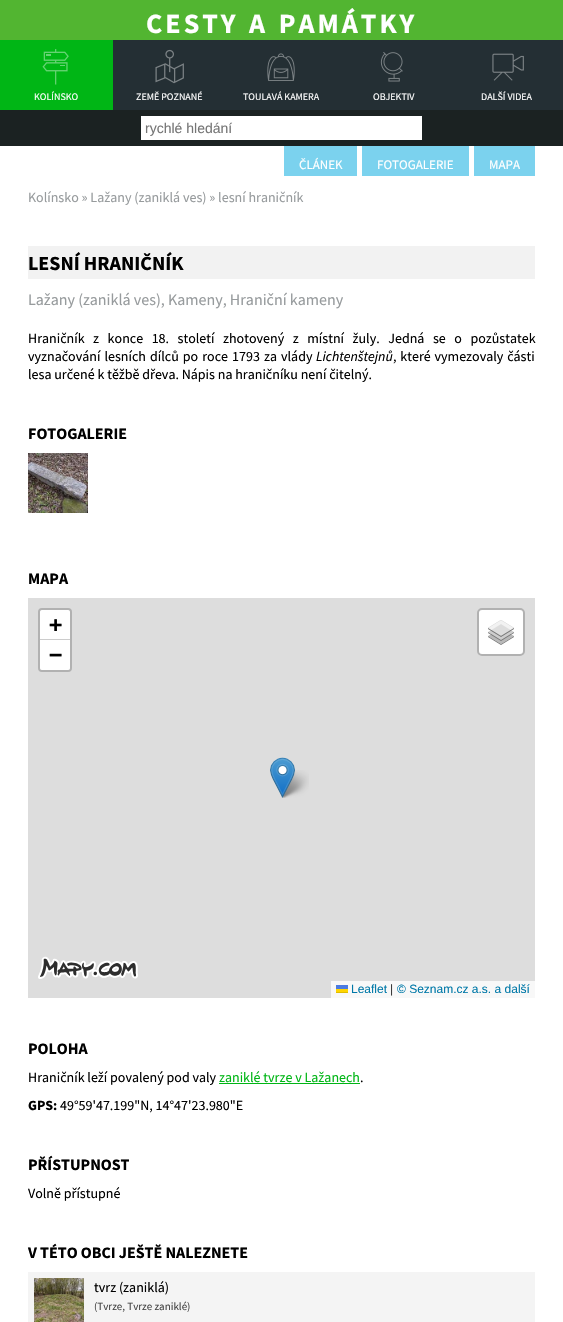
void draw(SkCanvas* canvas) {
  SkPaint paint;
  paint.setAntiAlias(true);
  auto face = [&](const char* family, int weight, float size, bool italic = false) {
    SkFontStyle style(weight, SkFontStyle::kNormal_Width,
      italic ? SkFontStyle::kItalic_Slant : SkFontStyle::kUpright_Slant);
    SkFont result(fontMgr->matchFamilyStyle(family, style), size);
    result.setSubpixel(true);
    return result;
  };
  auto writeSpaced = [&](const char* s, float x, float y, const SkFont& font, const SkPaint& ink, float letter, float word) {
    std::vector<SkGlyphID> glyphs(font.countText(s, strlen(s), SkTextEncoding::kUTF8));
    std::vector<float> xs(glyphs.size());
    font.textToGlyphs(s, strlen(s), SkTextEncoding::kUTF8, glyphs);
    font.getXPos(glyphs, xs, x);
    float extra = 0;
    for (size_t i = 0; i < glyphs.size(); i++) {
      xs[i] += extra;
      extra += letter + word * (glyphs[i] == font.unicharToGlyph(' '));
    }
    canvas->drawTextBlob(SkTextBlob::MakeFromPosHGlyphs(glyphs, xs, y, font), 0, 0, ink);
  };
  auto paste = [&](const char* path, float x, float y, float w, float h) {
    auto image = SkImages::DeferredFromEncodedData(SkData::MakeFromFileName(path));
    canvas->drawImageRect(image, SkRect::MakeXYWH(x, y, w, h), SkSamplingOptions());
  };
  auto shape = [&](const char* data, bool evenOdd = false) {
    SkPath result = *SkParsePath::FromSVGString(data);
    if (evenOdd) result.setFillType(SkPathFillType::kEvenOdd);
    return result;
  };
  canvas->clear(0xffffffff);
  {
    const struct { float x, y, w, h; SkColor color; } items[] = {
      {113, 40, 450, 70, 0xff242f34},
      {0, 0, 563, 40, 0xff52b531},
      {0, 40, 113, 70, 0xff00b615},
    };
    for (auto [x, y, w, h, color] : items) {
      paint.setColor(color);
      canvas->drawRect(SkRect::MakeXYWH(x, y, w, h), paint);
    }
  }
  paste("img/1.png", 42, 49, 27, 36);
  paste("img/2.png", 155, 49, 29, 35);
  paste("img/3.png", 267, 53, 28, 28);
  paste("img/4.png", 380, 52, 23, 30);
  paste("img/5.png", 492, 53, 32, 28);
  {
    const struct { float x, y, w, h; SkColor color; } items[] = {
      {0, 110, 563, 36, 0xff1b2222},
      {141, 116, 281, 24, 0xffffffff},
      {284, 146, 73, 30, 0xff7bd2ee},
      {362, 146, 107, 30, 0xff7bd2ee},
      {474, 146, 61, 30, 0xff7bd2ee},
      {28, 246, 507, 33, 0xfff2f2f2},
    };
    for (auto [x, y, w, h, color] : items) {
      paint.setColor(color);
      canvas->drawRect(SkRect::MakeXYWH(x, y, w, h), paint);
    }
  }
  paste("img/6.png", 28, 453, 60, 60);
  paint.setColor(0xffdddddd);
  canvas->drawRect(SkRect::MakeXYWH(28, 598, 507, 400), paint);
  paint.setStroke(true);
  paint.setStrokeWidth(2);
  paint.setColor(0xffb1b1b1);
  canvas->drawRoundRect(SkRect::MakeXYWH(39, 609, 32, 62), 3, 3, paint);
  paint.setStroke(false);
  paint.setColor(0xffffffff);
  canvas->drawPath(shape("M42 610H68C69 610 70 611 70 612V640H40V612C40 611 41 610 42 610Z"), paint);
  paint.setColor(0xffcccccc);
  canvas->drawRect(SkRect::MakeXYWH(40, 639, 30, 1), paint);
  paint.setColor(0xffffffff);
  canvas->drawPath(shape("M40 640H70V668C70 669 69 670 68 670H42C41 670 40 669 40 668Z"), paint);
  canvas->drawRoundRect(SkRect::MakeXYWH(478, 609, 46, 46), 4, 4, paint);
  paint.setStroke(true);
  paint.setColor(0xffb1b1b1);
  canvas->drawRoundRect(SkRect::MakeXYWH(478, 609, 46, 46), 4, 4, paint);
  paste("img/7.png", 488, 620, 26, 25);
  paste("img/8.png", 38, 956, 100, 23);
  paint.setStroke(false);
  {
    const struct { float x, y, w, h; SkColor color; } items[] = {
      {331, 981, 204, 17, 0xfff8f8f8},
      {336, 985, 12, 4, 0xff4c7be1},
      {336, 989, 12, 3, 0xffffd500},
      {336, 992, 12, 1, 0xffe0bc00},
    };
    for (auto [x, y, w, h, color] : items) {
      paint.setColor(color);
      canvas->drawRect(SkRect::MakeXYWH(x, y, w, h), paint);
    }
  }
  paste("img/10.png", 280, 770, 29, 28);
  paste("img/9.png", 270, 757, 25, 41);
  paint.setColor(0xff00b615);
  canvas->drawRect(SkRect::MakeXYWH(219, 1083, 141, 1), paint);
  paint.setColor(0xfff4f4f4);
  canvas->drawRect(SkRect::MakeXYWH(28, 1272, 507, 50), paint);
  paste("img/11.png", 34, 1278, 50, 44);
  auto f0 = face("Source Sans Pro", 700, 28);
  paint.setColor(0xffffffff);
  writeSpaced("CESTY A PAMÁTKY", 146, 33, f0, paint, 3, 2);
  auto f1 = face("Source Sans Pro", 400, 10);
  {
    const struct { const char* s; float x, y; } items[] = {
      {"KOLÍNSKO", 34, 100},
      {"ZEMĚ POZNANÉ", 136, 100},
      {"TOULAVÁ KAMERA", 243, 100},
      {"OBJEKTIV", 373, 100},
      {"DALŠÍ VIDEA", 481, 100},
    };
    for (auto [s, x, y] : items) {
      canvas->drawString(s, x, y, f1, paint);
    }
  }
  auto f2 = face("Liberation Sans", 400, 14);
  paint.setColor(0xff757575);
  canvas->drawString("rychlé hledání", 145, 133, f2, paint);
  auto f3 = face("Source Sans Pro", 400, 13);
  paint.setColor(0xffffffff);
  {
    const struct { const char* s; float x, y; } items[] = {
      {"ČLÁNEK", 299, 169},
      {"FOTOGALERIE", 377, 169},
      {"MAPA", 489, 169},
    };
    for (auto [s, x, y] : items) {
      canvas->drawString(s, x, y, f3, paint);
    }
  }
  auto f4 = face("Source Sans Pro", 400, 14);
  paint.setColor(0xff979b9d);
  canvas->drawString("Kolínsko » Lažany (zaniklá ves) » lesní hraničník", 28, 202, f4, paint);
  auto f5 = face("Source Sans Pro", 700, 20);
  paint.setColor(0xff000000);
  canvas->drawString("LESNÍ HRANIČNÍK", 28, 270, f5, paint);
  auto f6 = face("Source Sans Pro", 400, 16);
  paint.setColor(0xff979b9d);
  canvas->drawString("Lažany (zaniklá ves), Kameny, Hraniční kameny", 28, 305, f6, paint);
  paint.setColor(0xff000000);
  writeSpaced("Hraničník z konce 18. století zhotovený z místní žuly. Jedná se o pozůstatek", 28, 343, f4, paint, 0, 5.75f);
  writeSpaced("vyznačování lesních dílců po roce 1793 za vlády", 28, 361, f4, paint, 0, 1.25f);
  auto f7 = face("Source Sans Pro", 400, 14, true);
  canvas->drawString("Lichtenštejnů", 316, 361, f7, paint);
  writeSpaced(", které vymezovaly části", 393, 361, f4, paint, 0, 1);
  canvas->drawString("lesa určené k těžbě dřeva. Nápis na hraničníku není čitelný.", 28, 379, f4, paint);
  auto f8 = face("Source Sans Pro", 700, 16);
  canvas->drawString("FOTOGALERIE", 28, 439, f8, paint);
  canvas->drawString("MAPA", 28, 584, f8, paint);
  auto f9 = face("DejaVu Sans Mono", 700, 22);
  canvas->drawString("+", 49, 632, f9, paint);
  canvas->drawString("−", 49, 662, f9, paint);
  auto f10 = face("Liberation Sans", 400, 12);
  paint.setColor(0xff0078a8);
  canvas->drawString("Leaflet", 351, 993, f10, paint);
  paint.setColor(0xff333333);
  canvas->drawString("|", 390, 993, f10, paint);
  paint.setColor(0xff0078a8);
  canvas->drawString("© Seznam.cz a.s. a další", 397, 993, f10, paint);
  paint.setColor(0xff000000);
  canvas->drawString("POLOHA", 28, 1054, f8, paint);
  canvas->drawString("Hraničník leží povalený pod valy", 28, 1082, f4, paint);
  paint.setColor(0xff00b615);
  canvas->drawString("zaniklé tvrze v Lažanech", 219, 1082, f4, paint);
  paint.setColor(0xff000000);
  canvas->drawString(".", 360, 1082, f4, paint);
  auto f11 = face("Source Sans Pro", 700, 14);
  canvas->drawString("GPS:", 28, 1110, f11, paint);
  canvas->drawString("49°59'47.199\"N, 14°47'23.980\"E", 60, 1110, f4, paint);
  canvas->drawString("PŘÍSTUPNOST", 28, 1170, f8, paint);
  canvas->drawString("Volně přístupné", 28, 1198, f4, paint);
  canvas->drawString("V TÉTO OBCI JEŠTĚ NALEZNETE", 28, 1258, f8, paint);
  canvas->drawString("tvrz (zaniklá)", 94, 1292, f4, paint);
  auto f12 = face("Source Sans Pro", 400, 11);
  paint.setColor(0xff444444);
  canvas->drawString("(Tvrze, Tvrze zaniklé)", 94, 1310, f12, paint);
}
